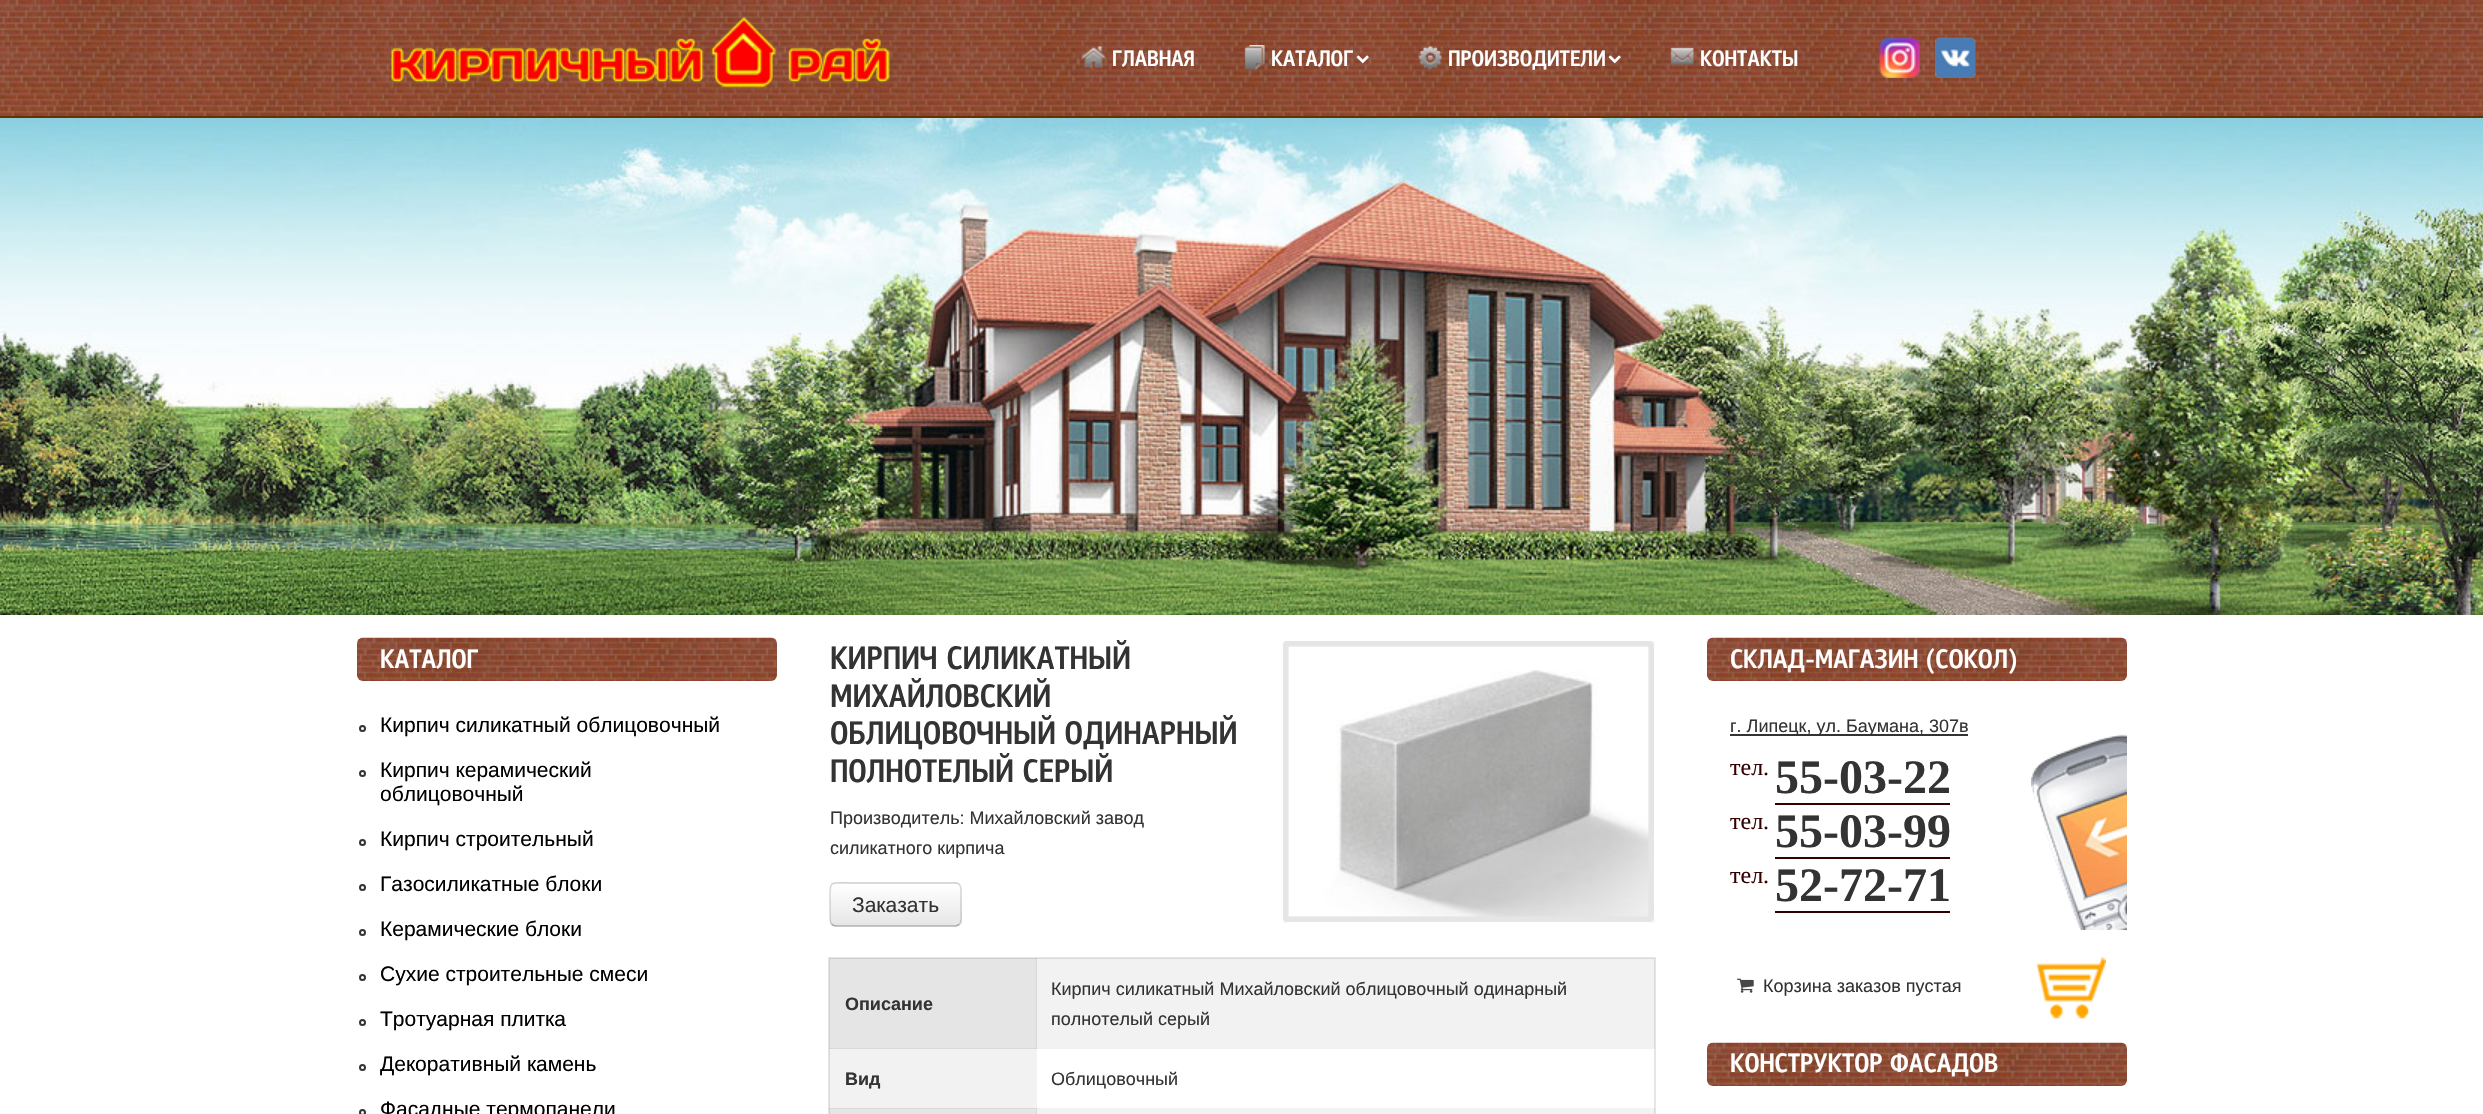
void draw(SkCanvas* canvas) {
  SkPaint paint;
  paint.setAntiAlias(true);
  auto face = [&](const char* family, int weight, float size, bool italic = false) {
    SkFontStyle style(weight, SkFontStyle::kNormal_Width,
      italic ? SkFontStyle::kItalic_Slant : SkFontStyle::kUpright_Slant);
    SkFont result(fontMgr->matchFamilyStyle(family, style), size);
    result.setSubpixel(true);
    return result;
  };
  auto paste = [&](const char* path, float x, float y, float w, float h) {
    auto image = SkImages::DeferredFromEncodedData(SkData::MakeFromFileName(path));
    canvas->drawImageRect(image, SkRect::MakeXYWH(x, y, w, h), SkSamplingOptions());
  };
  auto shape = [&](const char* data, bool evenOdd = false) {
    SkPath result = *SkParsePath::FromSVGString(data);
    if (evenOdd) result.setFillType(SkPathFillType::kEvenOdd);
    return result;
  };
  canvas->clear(0xffffffff);
  paste("img/1.png", 0, 0, 2483, 116);
  paint.setColor(0xff663300);
  canvas->drawRect(SkRect::MakeXYWH(0, 116, 2483, 2), paint);
  paste("img/2.png", 391, 16, 499, 72);
  paste("img/3.png", 1081, 46, 25, 22);
  paste("img/4.png", 1244, 45, 21, 24);
  paste("img/5.png", 1356, 55, 13, 9);
  paste("img/6.png", 1418, 46, 24, 23);
  paste("img/7.png", 1608, 55, 13, 9);
  paste("img/8.png", 1670, 47, 24, 18);
  paste("img/9.png", 1879, 37, 41, 41);
  paste("img/10.png", 1935, 37, 41, 41);
  paste("img/11.png", 0, 118, 2483, 497);
  paste("img/12.png", 357, 637, 420, 44);
  paint.setStroke(true);
  paint.setStrokeWidth(2);
  paint.setColor(0xff333333);
  canvas->drawCircle(362.5f, 728.5f, 2.5f, paint);
  canvas->drawCircle(362.5f, 773.5f, 2.5f, paint);
  canvas->drawCircle(362.5f, 842.5f, 2.5f, paint);
  canvas->drawCircle(362.5f, 887.5f, 2.5f, paint);
  canvas->drawCircle(362.5f, 932.5f, 2.5f, paint);
  canvas->drawCircle(362.5f, 977.5f, 2.5f, paint);
  canvas->drawCircle(362.5f, 1022.5f, 2.5f, paint);
  canvas->drawCircle(362.5f, 1067.5f, 2.5f, paint);
  canvas->drawCircle(362.5f, 1112.5f, 2.5f, paint);
  canvas->save();
  canvas->clipRect(SkRect::MakeXYWH(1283, 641, 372, 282));
  canvas->clipPath(shape("M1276 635H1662V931H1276ZM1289 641H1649C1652.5 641 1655 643.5 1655 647V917C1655 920.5 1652.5 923 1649 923H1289C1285.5 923 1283 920.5 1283 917V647C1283 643.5 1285.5 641 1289 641Z", true), true);
  paint.setStroke(false);
  paint.setColor(0x1a000000);
  paint.setMaskFilter(SkMaskFilter::MakeBlur(kNormal_SkBlurStyle, 2));
  canvas->drawRoundRect(SkRect::MakeXYWH(1283, 642, 372, 282), 6, 6, paint);
  paint.setMaskFilter(nullptr);
  canvas->restore();
  paste("img/13.png", 1283, 641, 371, 281);
  paste("img/14.png", 1288, 646, 361, 271);
  paint.setColor(0xfff5f5f5);
  canvas->drawRoundRect(SkRect::MakeXYWH(830, 882, 132, 45), 6, 6, paint);
  canvas->save();
  canvas->clipPath(shape("M836 882H956C959.5 882 962 884.5 962 888V921C962 924.5 959.5 927 956 927H836C832.5 927 830 924.5 830 921V888C830 884.5 832.5 882 836 882Z"), true);
  {
    const SkColor colors[] = {0xffffffff, 0xffe6e6e6};
    const float stops[] = {0, 1};
    const SkPoint ends[] = {{896, 884}, {896, 926}};
    paint.setShader(SkGradientShader::MakeLinear(ends, colors, stops, 2, SkTileMode::kClamp));
    paint.setAlpha(255);
  }
  canvas->drawRect(SkRect::MakeXYWH(830, 884, 132, 42), paint);
  canvas->restore();
  paint.setStroke(true);
  paint.setStrokeWidth(1.5f);
  paint.setShader(nullptr);
  paint.setColor(0x40000000);
  canvas->drawPath(shape("M959 924.5L956 926H835L832 924.5"), paint);
  paint.setColor(0x26000000);
  canvas->drawPath(shape("M832 924.5C829.5 922.5 830 918.5 830 915.5V904.5C830 878.5 827 883 855.5 883H955.5C961.5 883 961 889.5 961 893.5V910C961 913.5 962.5 921.5 959 924.5"), paint);
  paint.setStrokeWidth(2);
  paint.setColor(0xffe6e6e6);
  canvas->drawRect(SkRect::MakeXYWH(829, 958, 826, 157), paint);
  paint.setStroke(false);
  {
    const struct { float x, y, w, h; SkColor color; } items[] = {
      {829, 958, 208, 91, 0x1a000000},
      {1036, 958, 619, 91, 0x0d000000},
      {829, 1048, 208, 61, 0x0d000000},
      {829, 1108, 208, 6, 0x1a000000},
      {1036, 1108, 619, 6, 0x0d000000},
    };
    for (auto [x, y, w, h, color] : items) {
      paint.setColor(color);
      canvas->drawRect(SkRect::MakeXYWH(x, y, w, h), paint);
    }
  }
  paste("img/15.png", 2031, 734, 96, 196);
  paste("img/16.png", 1707, 637, 420, 44);
  {
    const struct { float x, y, w, h; SkColor color; } items[] = {
      {1730, 734, 238, 2, 0xff333333},
      {1775, 803, 175, 2, 0xff330000},
      {1775, 857, 175, 2, 0xff330000},
      {1775, 911, 175, 2, 0xff330000},
    };
    for (auto [x, y, w, h, color] : items) {
      paint.setColor(color);
      canvas->drawRect(SkRect::MakeXYWH(x, y, w, h), paint);
    }
  }
  paste("img/17.png", 2037, 957, 69, 62);
  paste("img/18.png", 1737, 978, 17, 15);
  paste("img/19.png", 1707, 1042, 420, 44);
  auto f0 = face("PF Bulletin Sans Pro", 500, 22.5f);
  paint.setColor(0xffffffff);
  {
    const struct { const char* s; float x, y; } items[] = {
      {"ГЛАВНАЯ", 1112, 66},
      {"КАТАЛОГ", 1271, 66},
      {"ПРОИЗВОДИТЕЛИ", 1448, 66},
      {"КОНТАКТЫ", 1700, 66},
    };
    for (auto [s, x, y] : items) {
      canvas->drawString(s, x, y, f0, paint);
    }
  }
  auto f1 = face("PF Bulletin Sans Pro", 500, 27);
  canvas->drawString("КАТАЛОГ", 380, 668, f1, paint);
  auto f2 = face("Liberation Sans", 400, 21);
  paint.setColor(0xff000000);
  {
    const struct { const char* s; float x, y; } items[] = {
      {"Кирпич силикатный облицовочный", 380, 732},
      {"Кирпич керамический", 380, 777},
      {"облицовочный", 380, 801},
      {"Кирпич строительный", 380, 846},
      {"Газосиликатные блоки", 380, 891},
      {"Керамические блоки", 380, 936},
      {"Сухие строительные смеси", 380, 981},
      {"Тротуарная плитка", 380, 1026},
      {"Декоративный камень", 380, 1071},
      {"Фасадные термопанели", 380, 1116},
    };
    for (auto [s, x, y] : items) {
      canvas->drawString(s, x, y, f2, paint);
    }
  }
  auto f3 = face("PF Bulletin Sans Pro", 500, 33);
  paint.setColor(0xff333333);
  {
    const struct { const char* s; float x, y; } items[] = {
      {"КИРПИЧ СИЛИКАТНЫЙ", 830, 669},
      {"МИХАЙЛОВСКИЙ", 830, 707},
      {"ОБЛИЦОВОЧНЫЙ ОДИНАРНЫЙ", 830, 744},
      {"ПОЛНОТЕЛЫЙ СЕРЫЙ", 830, 782},
    };
    for (auto [s, x, y] : items) {
      canvas->drawString(s, x, y, f3, paint);
    }
  }
  auto f4 = face("Liberation Sans", 400, 18);
  canvas->drawString("Производитель: Михайловский завод", 830, 824, f4, paint);
  canvas->drawString("силикатного кирпича", 830, 854, f4, paint);
  canvas->drawString("Заказать", 852, 912, f2, paint);
  auto f5 = face("Liberation Sans", 700, 18);
  canvas->drawString("Описание", 845, 1010, f5, paint);
  canvas->drawString("Кирпич силикатный Михайловский облицовочный одинарный", 1051, 995, f4, paint);
  canvas->drawString("полнотелый серый", 1051, 1025, f4, paint);
  canvas->drawString("Вид", 845, 1085, f5, paint);
  canvas->drawString("Облицовочный", 1051, 1085, f4, paint);
  paint.setColor(0xffffffff);
  canvas->drawString("СКЛАД-МАГАЗИН (СОКОЛ)", 1730, 668, f1, paint);
  paint.setColor(0xff333333);
  canvas->drawString("г. Липецк, ул. Баумана, 307в", 1730, 732, f4, paint);
  auto f6 = face("Liberation Serif", 400, 24);
  paint.setColor(0xff330000);
  canvas->drawString("тел.", 1730, 775, f6, paint);
  auto f7 = face("Liberation Serif", 700, 48);
  paint.setColor(0xff333333);
  canvas->drawString("55-03-22", 1775, 793, f7, paint);
  paint.setColor(0xff330000);
  canvas->drawString("тел.", 1730, 829, f6, paint);
  paint.setColor(0xff333333);
  canvas->drawString("55-03-99", 1775, 847, f7, paint);
  paint.setColor(0xff330000);
  canvas->drawString("тел.", 1730, 883, f6, paint);
  paint.setColor(0xff333333);
  canvas->drawString("52-72-71", 1775, 901, f7, paint);
  canvas->drawString("Корзина заказов пустая", 1763, 992, f4, paint);
  paint.setColor(0xffffffff);
  canvas->drawString("КОНСТРУКТОР ФАСАДОВ", 1730, 1072, f1, paint);
}
